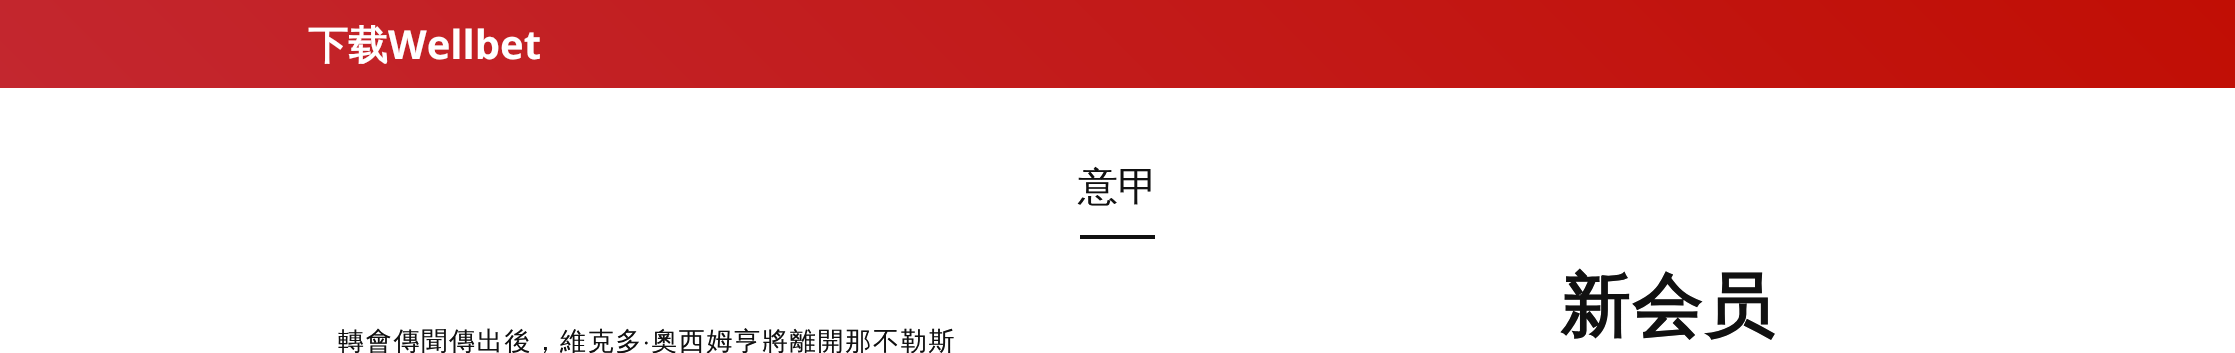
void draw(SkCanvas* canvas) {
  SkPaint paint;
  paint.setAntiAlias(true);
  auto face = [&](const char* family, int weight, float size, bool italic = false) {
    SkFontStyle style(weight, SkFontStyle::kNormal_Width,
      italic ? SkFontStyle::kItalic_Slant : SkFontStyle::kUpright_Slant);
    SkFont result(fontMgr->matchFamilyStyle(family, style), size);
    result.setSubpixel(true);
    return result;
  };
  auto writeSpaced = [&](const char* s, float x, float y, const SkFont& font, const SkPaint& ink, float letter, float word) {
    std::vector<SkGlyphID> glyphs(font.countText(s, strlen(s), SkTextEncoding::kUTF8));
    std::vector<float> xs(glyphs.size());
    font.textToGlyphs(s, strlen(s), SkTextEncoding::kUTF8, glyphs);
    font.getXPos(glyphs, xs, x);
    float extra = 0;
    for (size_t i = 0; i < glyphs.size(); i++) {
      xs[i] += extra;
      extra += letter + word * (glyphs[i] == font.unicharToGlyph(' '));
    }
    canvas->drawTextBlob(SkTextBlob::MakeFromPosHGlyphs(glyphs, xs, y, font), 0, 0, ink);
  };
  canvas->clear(0xffffffff);
  {
    const SkColor colors[] = {0xffc3272f, 0xffc10e04};
    const float stops[] = {0, 1};
    const SkPoint ends[] = {{537, 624}, {1698, -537}};
    paint.setShader(SkGradientShader::MakeLinear(ends, colors, stops, 2, SkTileMode::kClamp));
    paint.setAlpha(255);
  }
  canvas->drawRect(SkRect::MakeXYWH(0, 0, 2235, 88), paint);
  paint.setShader(nullptr);
  paint.setColor(0xff111111);
  canvas->drawRect(SkRect::MakeXYWH(1080, 235, 75, 4), paint);
  auto f0 = face("WenQuanYi Zen Hei", 700, 40);
  paint.setColor(0xffffffff);
  canvas->drawString("下载", 308, 59, f0, paint);
  auto f1 = face("Open Sans", 700, 40);
  canvas->drawString("Wellbet", 388, 59, f1, paint);
  auto f2 = face("WenQuanYi Zen Hei", 500, 40);
  paint.setColor(0xff111111);
  canvas->drawString("意甲", 1078, 200, f2, paint);
  auto f3 = face("WenQuanYi Zen Hei", 500, 26);
  writeSpaced("轉會傳聞傳出後，維克多", 338, 350, f3, paint, 1.75f, 0);
  auto f4 = face("Montserrat", 400, 26);
  writeSpaced("·", 643, 350, f4, paint, 1.75f, 0);
  writeSpaced("奧西姆亨將離開那不勒斯", 651, 350, f3, paint, 1.75f, 0);
  auto f5 = face("WenQuanYi Zen Hei", 700, 70);
  writeSpaced("新会员", 1560, 330, f5, paint, 2, 0);
}
